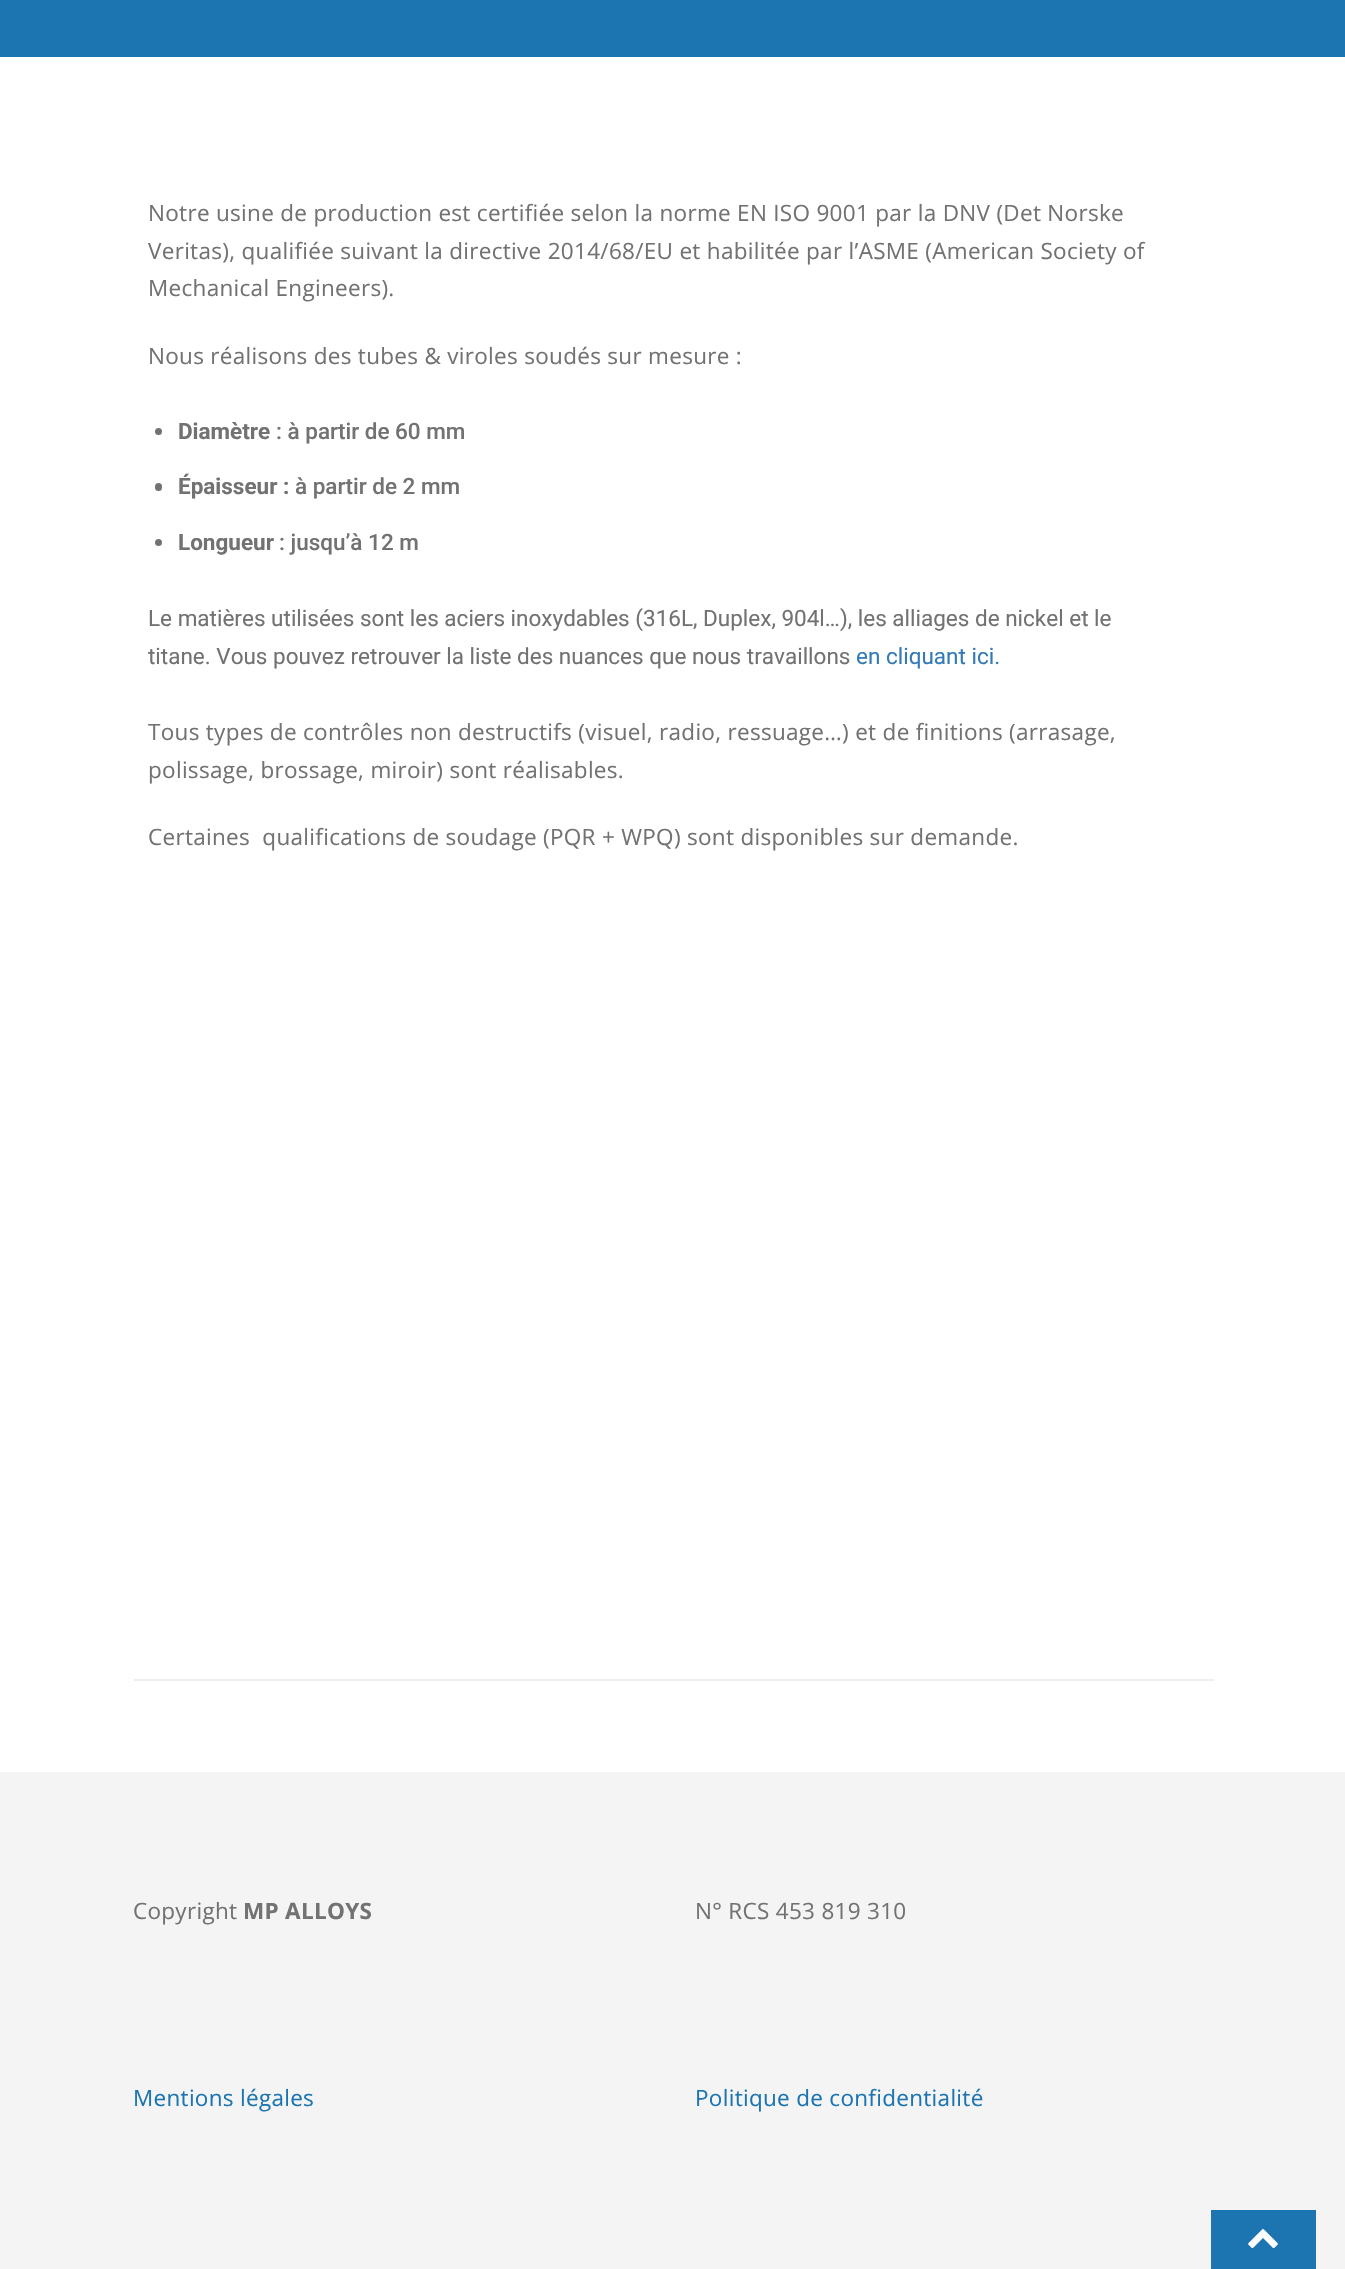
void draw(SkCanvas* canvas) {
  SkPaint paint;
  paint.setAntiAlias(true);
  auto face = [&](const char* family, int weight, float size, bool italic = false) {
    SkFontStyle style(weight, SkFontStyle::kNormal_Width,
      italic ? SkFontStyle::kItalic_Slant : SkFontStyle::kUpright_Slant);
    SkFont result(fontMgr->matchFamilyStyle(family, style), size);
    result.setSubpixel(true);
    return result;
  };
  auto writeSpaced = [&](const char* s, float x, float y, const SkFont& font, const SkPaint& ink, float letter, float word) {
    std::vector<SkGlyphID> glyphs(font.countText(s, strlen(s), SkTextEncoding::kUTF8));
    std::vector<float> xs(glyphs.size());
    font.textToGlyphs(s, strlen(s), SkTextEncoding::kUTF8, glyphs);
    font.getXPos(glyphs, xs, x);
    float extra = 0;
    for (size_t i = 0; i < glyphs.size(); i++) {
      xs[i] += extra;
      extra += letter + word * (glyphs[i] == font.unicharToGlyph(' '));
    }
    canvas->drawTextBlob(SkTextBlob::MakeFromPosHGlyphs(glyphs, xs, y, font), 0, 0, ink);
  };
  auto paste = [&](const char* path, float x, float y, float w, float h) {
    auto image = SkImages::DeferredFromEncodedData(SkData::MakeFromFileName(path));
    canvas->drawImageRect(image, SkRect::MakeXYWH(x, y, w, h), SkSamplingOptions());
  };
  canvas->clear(0xffffffff);
  paint.setColor(0xff1c75b1);
  canvas->drawRect(SkRect::MakeXYWH(0, 0, 1345, 57), paint);
  paint.setColor(0xffeeeeee);
  canvas->drawRect(SkRect::MakeXYWH(134, 1679, 1080, 2), paint);
  paint.setColor(0xff727272);
  canvas->drawCircle(158.5f, 431.5f, 3.5f, paint);
  canvas->drawRoundRect(SkRect::MakeXYWH(155, 483, 7, 8), 3.5f, 3.5f, paint);
  canvas->drawCircle(158.5f, 542.5f, 3.5f, paint);
  paint.setColor(0xfff4f4f4);
  canvas->drawRect(SkRect::MakeXYWH(0, 1772, 1345, 497), paint);
  paint.setColor(0xff1c75b1);
  canvas->drawRect(SkRect::MakeXYWH(1211, 2210, 105, 59), paint);
  paste("img/1.png", 1248, 2229, 30, 20);
  auto f0 = face("Open Sans", 400, 22.5f);
  paint.setColor(0xff727272);
  {
    const struct { const char* s; float x, y; } items[] = {
      {"Notre usine de production est certifiée selon la norme EN ISO 9001 par la DNV (Det Norske", 148, 221},
      {"Veritas), qualifiée suivant la directive 2014/68/EU et habilitée par l’ASME (American Society of", 148, 259},
      {"Mechanical Engineers).", 148, 296},
      {"Nous réalisons des tubes & viroles soudés sur mesure :", 148, 364},
    };
    for (auto [s, x, y] : items) {
      writeSpaced(s, x, y, f0, paint, 0.3f, 0);
    }
  }
  auto f1 = face("Roboto", 700, 22.5f);
  canvas->drawString("Diamètre", 178, 439, f1, paint);
  auto f2 = face("Roboto", 500, 22.5f);
  canvas->drawString(": à partir de 60 mm", 276, 439, f2, paint);
  canvas->drawString("Épaisseur :", 178, 494, f1, paint);
  canvas->drawString("à partir de 2 mm", 295, 494, f2, paint);
  canvas->drawString("Longueur", 178, 550, f1, paint);
  canvas->drawString(": jusqu’à 12 m", 279, 550, f2, paint);
  auto f3 = face("Roboto", 400, 22.5f);
  canvas->drawString("Le matières utilisées sont les aciers inoxydables (316L, Duplex, 904l…), les alliages de nickel et le", 148, 626, f3, paint);
  canvas->drawString("titane. Vous pouvez retrouver la liste des nuances que nous travaillons", 148, 664, f3, paint);
  paint.setColor(0xff337ab7);
  canvas->drawString("en cliquant ici.", 856, 664, f3, paint);
  paint.setColor(0xff727272);
  {
    const struct { const char* s; float x, y; } items[] = {
      {"Tous types de contrôles non destructifs (visuel, radio, ressuage…) et de finitions (arrasage,", 148, 740},
      {"polissage, brossage, miroir) sont réalisables.", 148, 778},
      {"Certaines  qualifications de soudage (PQR + WPQ) sont disponibles sur demande.", 148, 845},
      {"Copyright", 133, 1919},
    };
    for (auto [s, x, y] : items) {
      writeSpaced(s, x, y, f0, paint, 0.3f, 0);
    }
  }
  auto f4 = face("Open Sans", 700, 22.5f);
  writeSpaced("MP ALLOYS", 243, 1919, f4, paint, 0.3f, 0);
  writeSpaced("N° RCS 453 819 310", 695, 1919, f0, paint, 0.3f, 0);
  paint.setColor(0xff1c75b1);
  writeSpaced("Mentions légales", 133, 2106, f0, paint, 0.3f, 0);
  writeSpaced("Politique de confidentialité", 695, 2106, f0, paint, 0.3f, 0);
}
